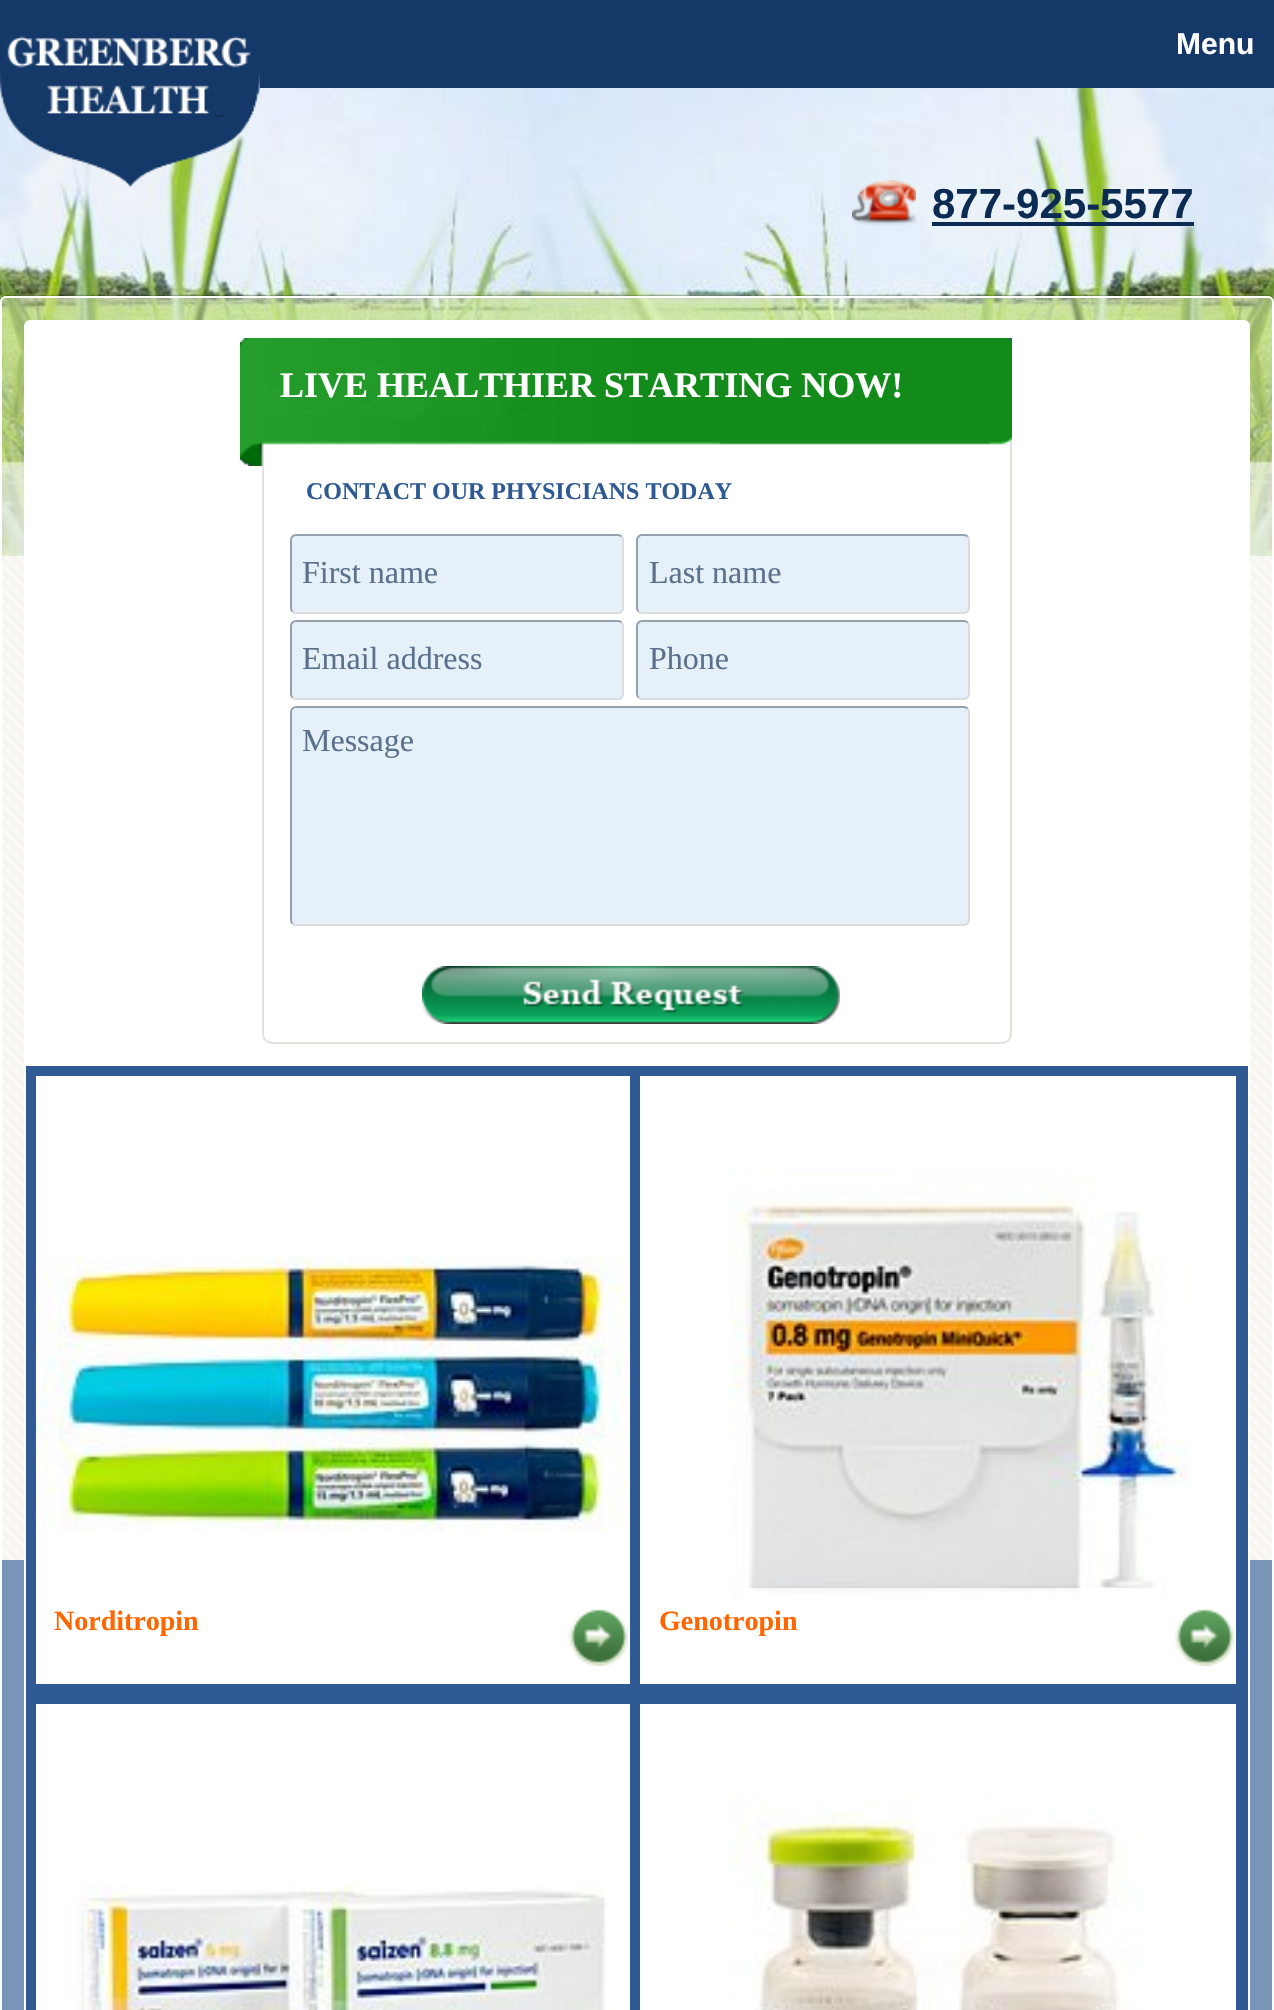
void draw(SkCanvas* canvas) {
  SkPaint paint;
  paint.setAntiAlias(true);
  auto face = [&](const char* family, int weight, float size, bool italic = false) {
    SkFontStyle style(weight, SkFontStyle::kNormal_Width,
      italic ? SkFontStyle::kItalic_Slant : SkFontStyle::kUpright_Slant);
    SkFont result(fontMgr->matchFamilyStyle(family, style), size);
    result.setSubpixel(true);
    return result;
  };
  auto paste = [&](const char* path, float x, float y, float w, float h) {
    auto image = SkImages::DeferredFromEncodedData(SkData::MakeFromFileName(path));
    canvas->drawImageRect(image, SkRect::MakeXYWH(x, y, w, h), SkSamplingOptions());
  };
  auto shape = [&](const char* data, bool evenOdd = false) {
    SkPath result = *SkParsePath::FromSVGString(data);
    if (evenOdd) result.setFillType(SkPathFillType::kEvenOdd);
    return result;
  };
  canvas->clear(0xff305a94);
  paste("img/1.png", 0, 88, 1274, 468);
  paint.setColor(0xff143867);
  canvas->drawRect(SkRect::MakeXYWH(0, 0, 1274, 88), paint);
  paste("img/2.png", 0, 36, 260, 151);
  paste("img/3.png", 852, 180, 64, 46);
  paint.setColor(0xff0c2b53);
  canvas->drawRect(SkRect::MakeXYWH(932, 222, 262, 4), paint);
  paste("img/13.png", 2, 556, 1270, 1004);
  canvas->save();
  canvas->clipPath(shape("M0 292H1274V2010H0ZM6 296H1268C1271.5 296 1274 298.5 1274 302V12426C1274 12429.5 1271.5 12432 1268 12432H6C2.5 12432 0 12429.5 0 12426V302C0 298.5 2.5 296 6 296Z", true), true);
  paint.setColor(0xcc000000);
  paint.setMaskFilter(SkMaskFilter::MakeBlur(kNormal_SkBlurStyle, 1));
  canvas->drawRoundRect(SkRect::MakeXYWH(0, 296, 1274, 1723), 6, 6, paint);
  paint.setMaskFilter(nullptr);
  canvas->restore();
  paste("img/4.png", 0, 296, 1274, 1714);
  paint.setStroke(true);
  paint.setStrokeWidth(2);
  paint.setColor(0xffffffff);
  canvas->drawRoundRect(SkRect::MakeXYWH(1, 297, 1272, 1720), 5, 5, paint);
  paint.setStroke(false);
  canvas->drawRoundRect(SkRect::MakeXYWH(25, 321, 1224, 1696), 5, 5, paint);
  paint.setStroke(true);
  canvas->drawRoundRect(SkRect::MakeXYWH(25, 321, 1224, 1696), 5, 5, paint);
  paint.setColor(0xffe1e2dc);
  canvas->drawRoundRect(SkRect::MakeXYWH(263, 339, 748, 704), 9, 9, paint);
  paste("img/5.png", 240, 338, 772, 128);
  paint.setStroke(false);
  paint.setColor(0xffe6f0f8);
  canvas->drawRoundRect(SkRect::MakeXYWH(290, 534, 334, 80), 6, 6, paint);
  paint.setStroke(true);
  paint.setColor(0xffdcdcdc);
  canvas->drawPath(shape("M621.5 536.5C622.5 537.5 623 538.5 623 540V608C623 609.5 622.5 610.5 621.5 611.5C620.5 612.5 619.5 613 618 613H296C294.5 613 293.5 612.5 292.5 611.5"), paint);
  paint.setColor(0xff96a1af);
  canvas->drawPath(shape("M292.5 611.5C291.5 610.5 291 609.5 291 608V540C291 538.5 291.5 537.5 292.5 536.5C293.5 535.5 294.5 535 296 535H618C619.5 535 620.5 535.5 621.5 536.5"), paint);
  paint.setStroke(false);
  paint.setColor(0xffe6f0f8);
  canvas->drawRoundRect(SkRect::MakeXYWH(636, 534, 334, 80), 6, 6, paint);
  paint.setStroke(true);
  paint.setColor(0xffdcdcdc);
  canvas->drawPath(shape("M967.5 536.5C968.5 537.5 969 538.5 969 540V608C969 609.5 968.5 610.5 967.5 611.5C966.5 612.5 965.5 613 964 613H642C640.5 613 639.5 612.5 638.5 611.5"), paint);
  paint.setColor(0xff96a1af);
  canvas->drawPath(shape("M638.5 611.5C637.5 610.5 637 609.5 637 608V540C637 538.5 637.5 537.5 638.5 536.5C639.5 535.5 640.5 535 642 535H964C965.5 535 966.5 535.5 967.5 536.5"), paint);
  paint.setStroke(false);
  paint.setColor(0xffe6f0f8);
  canvas->drawRoundRect(SkRect::MakeXYWH(290, 620, 334, 80), 6, 6, paint);
  paint.setStroke(true);
  paint.setColor(0xffdcdcdc);
  canvas->drawPath(shape("M621.5 622.5C622.5 623.5 623 624.5 623 626V694C623 695.5 622.5 696.5 621.5 697.5C620.5 698.5 619.5 699 618 699H296C294.5 699 293.5 698.5 292.5 697.5"), paint);
  paint.setColor(0xff96a1af);
  canvas->drawPath(shape("M292.5 697.5C291.5 696.5 291 695.5 291 694V626C291 624.5 291.5 623.5 292.5 622.5C293.5 621.5 294.5 621 296 621H618C619.5 621 620.5 621.5 621.5 622.5"), paint);
  paint.setStroke(false);
  paint.setColor(0xffe6f0f8);
  canvas->drawRoundRect(SkRect::MakeXYWH(636, 620, 334, 80), 6, 6, paint);
  paint.setStroke(true);
  paint.setColor(0xffdcdcdc);
  canvas->drawPath(shape("M967.5 622.5C968.5 623.5 969 624.5 969 626V694C969 695.5 968.5 696.5 967.5 697.5C966.5 698.5 965.5 699 964 699H642C640.5 699 639.5 698.5 638.5 697.5"), paint);
  paint.setColor(0xff96a1af);
  canvas->drawPath(shape("M638.5 697.5C637.5 696.5 637 695.5 637 694V626C637 624.5 637.5 623.5 638.5 622.5C639.5 621.5 640.5 621 642 621H964C965.5 621 966.5 621.5 967.5 622.5"), paint);
  paint.setStroke(false);
  paint.setColor(0xffe6f0f8);
  canvas->drawRoundRect(SkRect::MakeXYWH(290, 706, 680, 220), 6, 6, paint);
  paint.setStroke(true);
  paint.setColor(0xffdcdcdc);
  canvas->drawPath(shape("M967.5 708.5C968.5 709.5 969 710.5 969 712V920C969 921.5 968.5 922.5 967.5 923.5C966.5 924.5 965.5 925 964 925H296C294.5 925 293.5 924.5 292.5 923.5"), paint);
  paint.setColor(0xff96a1af);
  canvas->drawPath(shape("M292.5 923.5C291.5 922.5 291 921.5 291 920V712C291 710.5 291.5 709.5 292.5 708.5C293.5 707.5 294.5 707 296 707H964C965.5 707 966.5 707.5 967.5 708.5"), paint);
  paste("img/6.png", 422, 966, 418, 58);
  paint.setStroke(false);
  paint.setColor(0xff305a94);
  canvas->drawRect(SkRect::MakeXYWH(26, 1066, 1222, 944), paint);
  paste("img/7.png", 36, 1076, 594, 608);
  paste("img/8.png", 568, 1609, 60, 57);
  paste("img/9.png", 640, 1076, 596, 608);
  paint.setColor(0xccffffff);
  canvas->drawRect(SkRect::MakeXYWH(743, 1588, 410, 11), paint);
  paste("img/10.png", 1174, 1609, 60, 57);
  paste("img/11.png", 36, 1704, 594, 306);
  paste("img/12.png", 640, 1704, 596, 306);
  auto f0 = face("Liberation Sans", 700, 30);
  paint.setColor(0xffffffff);
  canvas->drawString("Menu", 1176, 54, f0, paint);
  auto f1 = face("Liberation Sans", 700, 42);
  paint.setColor(0xff0c2b53);
  canvas->drawString("877-925-5577", 932, 218, f1, paint);
  auto f2 = face("Liberation Serif", 700, 36);
  paint.setColor(0xffffffff);
  canvas->drawString("LIVE HEALTHIER STARTING NOW!", 280, 397, f2, paint);
  auto f3 = face("Liberation Serif", 700, 24);
  paint.setColor(0xff2e5a94);
  canvas->drawString("CONTACT OUR PHYSICIANS TODAY", 306, 499, f3, paint);
  auto f4 = face("Liberation Serif", 400, 32);
  paint.setColor(0xff5b708d);
  {
    const struct { const char* s; float x, y; } items[] = {
      {"First name", 302, 583},
      {"Last name", 649, 583},
      {"Email address", 302, 669},
      {"Phone", 649, 669},
      {"Message", 302, 751},
    };
    for (auto [s, x, y] : items) {
      canvas->drawString(s, x, y, f4, paint);
    }
  }
  auto f5 = face("Liberation Serif", 700, 28);
  paint.setColor(0xffff6600);
  canvas->drawString("Norditropin", 54, 1630, f5, paint);
  canvas->drawString("Genotropin", 659, 1630, f5, paint);
}
